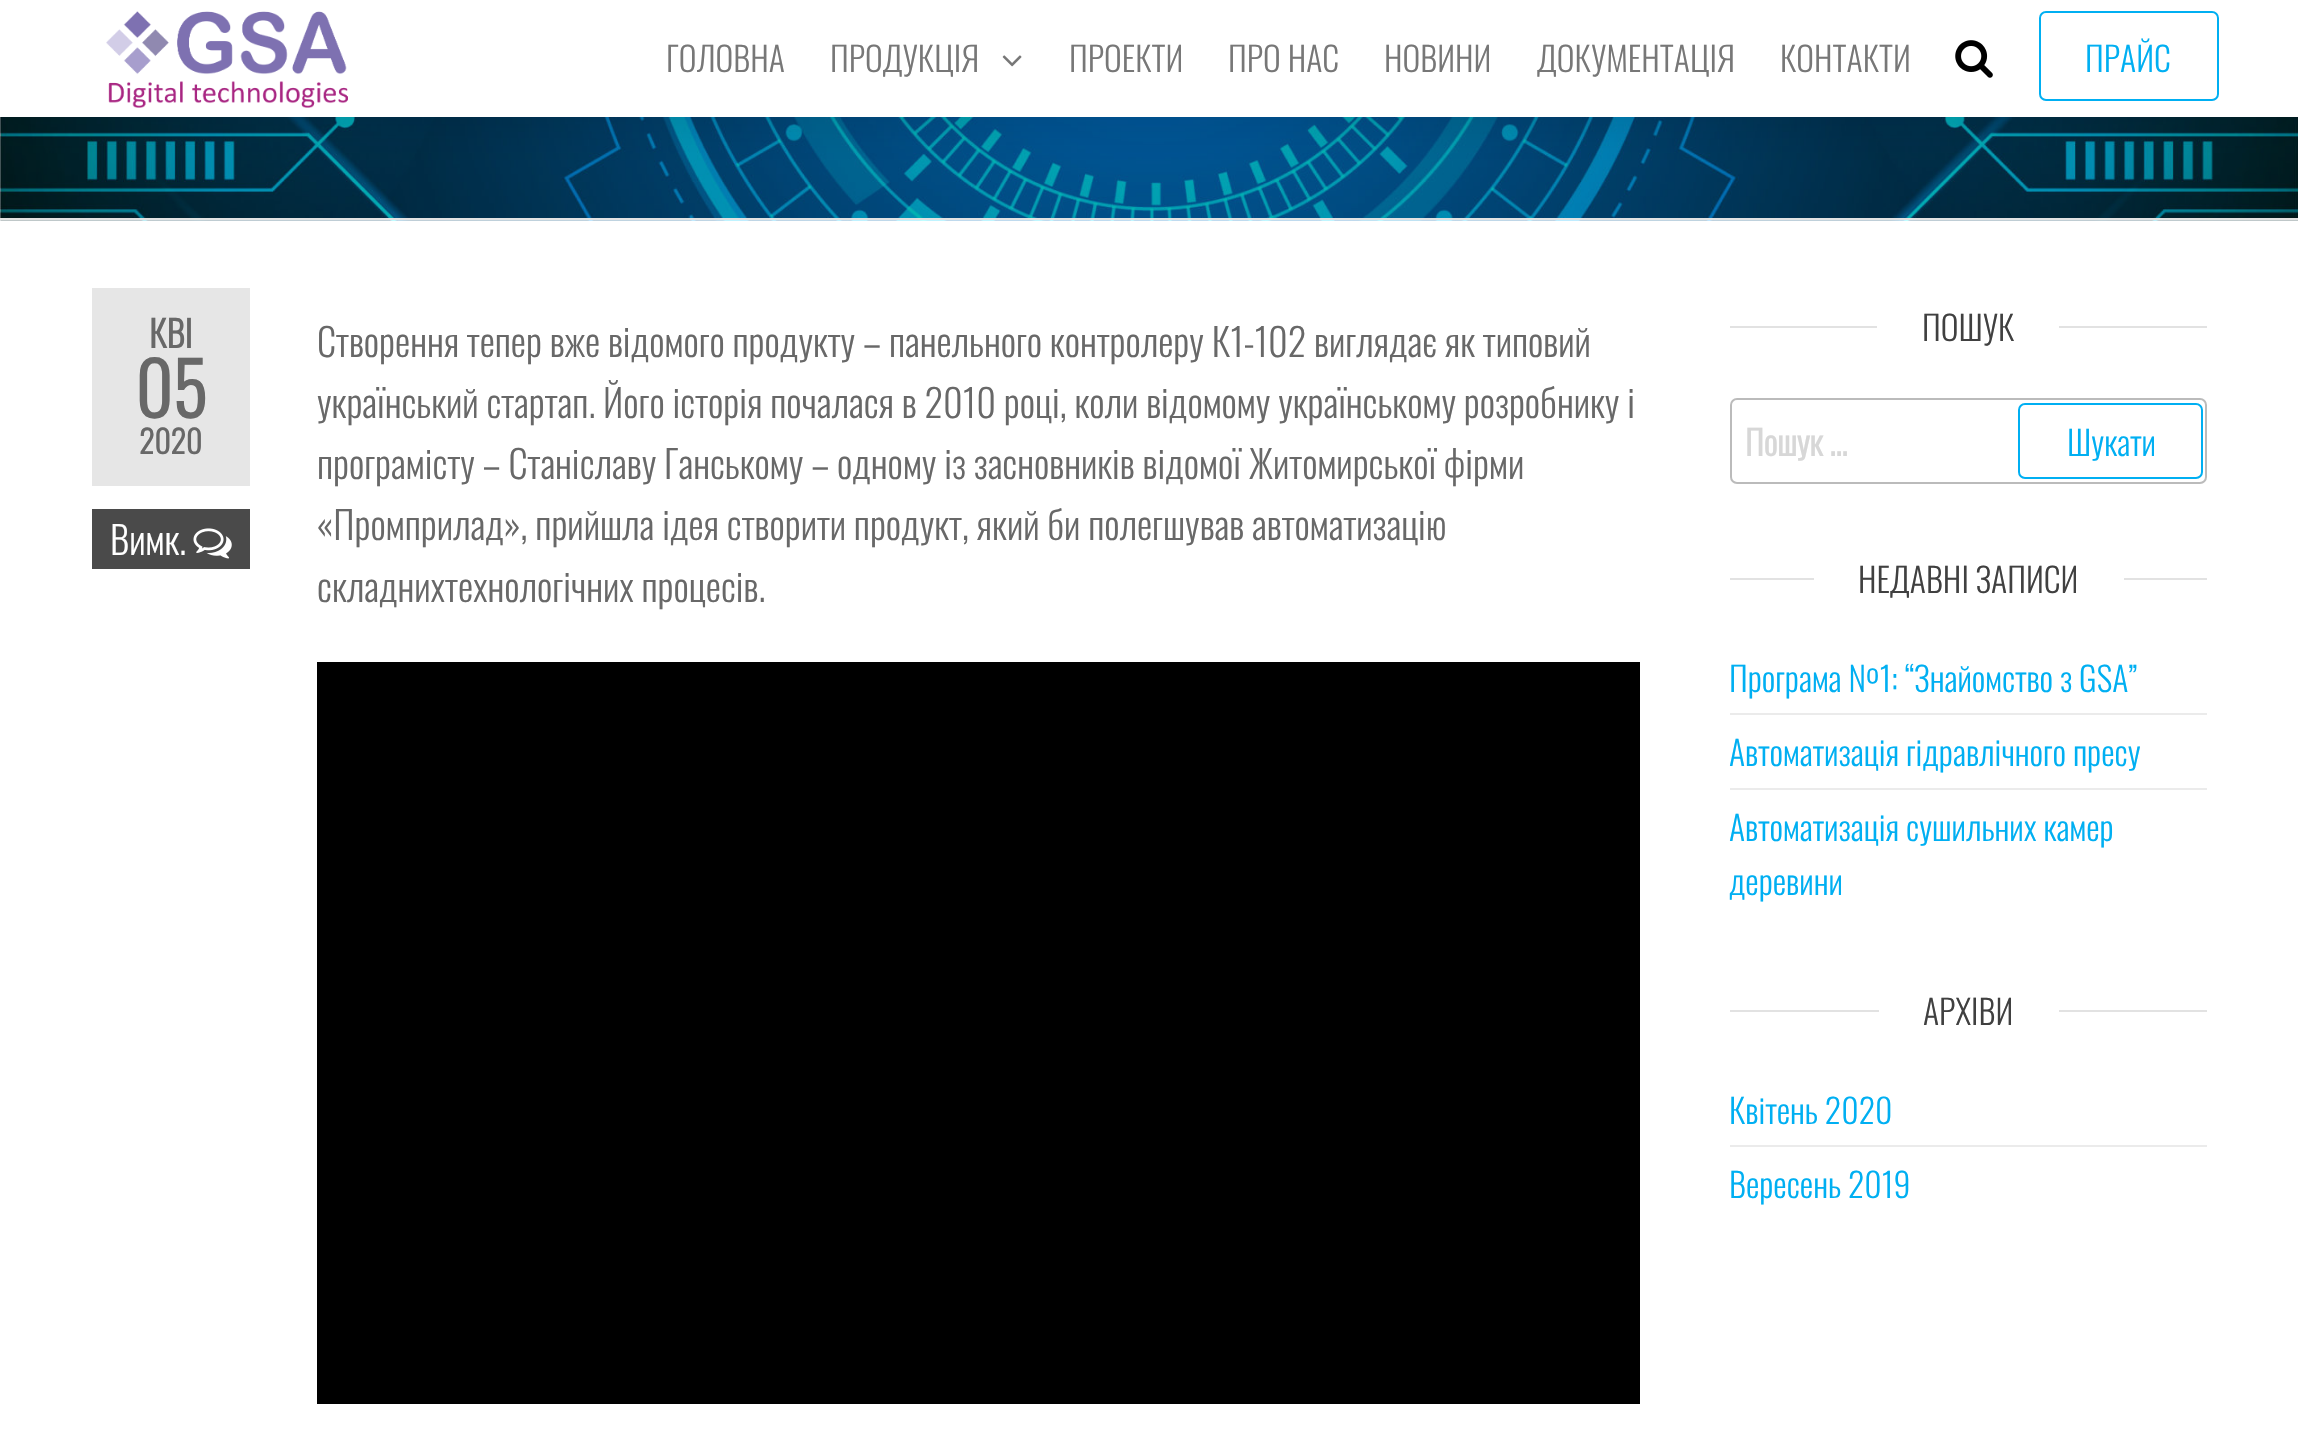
void draw(SkCanvas* canvas) {
  SkPaint paint;
  paint.setAntiAlias(true);
  auto face = [&](const char* family, int weight, float size, bool italic = false) {
    SkFontStyle style(weight, SkFontStyle::kNormal_Width,
      italic ? SkFontStyle::kItalic_Slant : SkFontStyle::kUpright_Slant);
    SkFont result(fontMgr->matchFamilyStyle(family, style), size);
    result.setSubpixel(true);
    return result;
  };
  auto paste = [&](const char* path, float x, float y, float w, float h) {
    auto image = SkImages::DeferredFromEncodedData(SkData::MakeFromFileName(path));
    canvas->drawImageRect(image, SkRect::MakeXYWH(x, y, w, h), SkSamplingOptions());
  };
  canvas->clear(0xffffffff);
  paste("img/4.png", 0, 117, 2298, 104);
  paint.setColor(0x1a000000);
  paint.setMaskFilter(SkMaskFilter::MakeBlur(kNormal_SkBlurStyle, 18));
  canvas->drawRect(SkRect::MakeXYWH(0, 9, 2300, 117), paint);
  paint.setMaskFilter(nullptr);
  paint.setColor(0xffffffff);
  canvas->drawRect(SkRect::MakeXYWH(0, 0, 2298, 117), paint);
  paste("img/1.png", 106, 11, 242, 97);
  paste("img/2.png", 1002, 55, 20, 12);
  paste("img/3.png", 1955, 40, 38, 38);
  paint.setStroke(true);
  paint.setStrokeWidth(2);
  paint.setColor(0xff00aff2);
  canvas->drawRoundRect(SkRect::MakeXYWH(2040, 12, 178, 88), 6, 6, paint);
  paint.setStroke(false);
  {
    const struct { float x, y, w, h; SkColor color; } items[] = {
      {0, 218, 2298, 2, 0xffe2e2e2},
      {92, 288, 158, 198, 0xffe6e6e6},
      {92, 509, 158, 60, 0xff4a4a4a},
    };
    for (auto [x, y, w, h, color] : items) {
      paint.setColor(color);
      canvas->drawRect(SkRect::MakeXYWH(x, y, w, h), paint);
    }
  }
  paste("img/5.png", 193, 528, 39, 31);
  {
    const struct { float x, y, w, h; SkColor color; } items[] = {
      {317, 662, 1323, 742, 0xff000000},
      {1730, 326, 477, 2, 0xffe2e2e2},
      {1877, 326, 182, 2, 0xffffffff},
    };
    for (auto [x, y, w, h, color] : items) {
      paint.setColor(color);
      canvas->drawRect(SkRect::MakeXYWH(x, y, w, h), paint);
    }
  }
  paint.setStroke(true);
  paint.setColor(0xffbbbbbb);
  canvas->drawRoundRect(SkRect::MakeXYWH(1731, 399, 475, 84), 6, 6, paint);
  paint.setColor(0xff00aff2);
  canvas->drawRoundRect(SkRect::MakeXYWH(2019, 404, 183, 74), 6, 6, paint);
  paint.setStroke(false);
  {
    const struct { float x, y, w, h; SkColor color; } items[] = {
      {1730, 578, 477, 2, 0xffe2e2e2},
      {1814, 578, 310, 2, 0xffffffff},
      {1730, 713, 477, 2, 0xffebebeb},
      {1730, 788, 477, 2, 0xffebebeb},
      {1730, 1010, 477, 2, 0xffe2e2e2},
      {1879, 1010, 180, 2, 0xffffffff},
      {1730, 1145, 477, 2, 0xffebebeb},
    };
    for (auto [x, y, w, h, color] : items) {
      paint.setColor(color);
      canvas->drawRect(SkRect::MakeXYWH(x, y, w, h), paint);
    }
  }
  auto f0 = face("Oswald", 300, 33.75f);
  paint.setColor(0xff777777);
  {
    const struct { const char* s; float x, y; } items[] = {
      {"ГОЛОВНА", 666, 72},
      {"ПРОДУКЦІЯ", 830, 72},
      {"ПРОЕКТИ", 1069, 72},
      {"ПРО НАС", 1228, 72},
      {"НОВИНИ", 1384, 72},
      {"ДОКУМЕНТАЦІЯ", 1537, 72},
      {"КОНТАКТИ", 1780, 72},
    };
    for (auto [s, x, y] : items) {
      canvas->drawString(s, x, y, f0, paint);
    }
  }
  paint.setColor(0xff00aff2);
  canvas->drawString("ПРАЙС", 2085, 72, f0, paint);
  auto f1 = face("Oswald", 700, 36);
  paint.setColor(0xff686868);
  canvas->drawString("КВІ", 149, 348, f1, paint);
  auto f2 = face("Oswald", 700, 72);
  canvas->drawString("05", 135, 418, f2, paint);
  auto f3 = face("Oswald", 700, 31.5f);
  canvas->drawString("2020", 139, 454, f3, paint);
  auto f4 = face("Oswald", 300, 38.25f);
  paint.setColor(0xffffffff);
  canvas->drawString("Вимк.", 110, 555, f4, paint);
  paint.setColor(0xff686868);
  {
    const struct { const char* s; float x, y; } items[] = {
      {"Створення тепер вже відомого продукту – панельного контролеру К1-102 виглядає як типовий", 317, 357},
      {"український стартап. Його історія почалася в 2010 році, коли відомому українському розробнику і", 317, 418},
      {"програмісту – Станіславу Ганському – одному із засновників відомої Житомирської фірми", 317, 479},
      {"«Промприлад», прийшла ідея створити продукт, який би полегшував автоматизацію", 317, 540},
      {"складнихтехнологічних процесів.", 317, 602},
    };
    for (auto [s, x, y] : items) {
      canvas->drawString(s, x, y, f4, paint);
    }
  }
  paint.setColor(0xff404040);
  canvas->drawString("ПОШУК", 1922, 341, f0, paint);
  auto f5 = face("Oswald", 700, 33.75f);
  paint.setColor(0xffd7d7d7);
  canvas->drawString("Пошук …", 1745, 456, f5, paint);
  paint.setColor(0xff00aff2);
  canvas->drawString("Шукати", 2067, 456, f0, paint);
  paint.setColor(0xff404040);
  canvas->drawString("НЕДАВНІ ЗАПИСИ", 1858, 593, f0, paint);
  paint.setColor(0xff00aff2);
  {
    const struct { const char* s; float x, y; } items[] = {
      {"Програма №1: “Знайомство з GSA”", 1729, 692},
      {"Автоматизація гідравлічного пресу", 1729, 766},
      {"Автоматизація сушильних камер", 1729, 841},
      {"деревини", 1729, 895},
    };
    for (auto [s, x, y] : items) {
      canvas->drawString(s, x, y, f0, paint);
    }
  }
  paint.setColor(0xff404040);
  canvas->drawString("АРХІВИ", 1923, 1025, f0, paint);
  paint.setColor(0xff00aff2);
  canvas->drawString("Квітень 2020", 1729, 1124, f0, paint);
  canvas->drawString("Вересень 2019", 1729, 1198, f0, paint);
}
